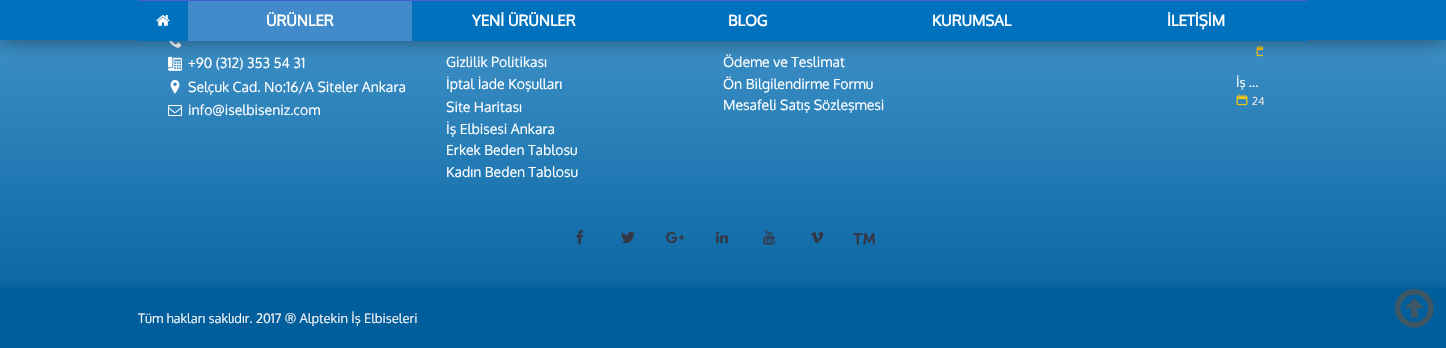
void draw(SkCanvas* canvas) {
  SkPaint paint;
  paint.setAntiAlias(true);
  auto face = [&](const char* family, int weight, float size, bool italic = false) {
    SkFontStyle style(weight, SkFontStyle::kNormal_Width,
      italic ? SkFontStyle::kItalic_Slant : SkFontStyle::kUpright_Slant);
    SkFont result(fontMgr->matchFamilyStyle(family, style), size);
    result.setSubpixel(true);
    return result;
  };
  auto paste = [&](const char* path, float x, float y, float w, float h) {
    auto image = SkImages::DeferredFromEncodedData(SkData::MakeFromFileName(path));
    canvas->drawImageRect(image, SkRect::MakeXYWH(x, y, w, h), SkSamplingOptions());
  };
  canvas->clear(0xffffffff);
  {
    const SkColor colors[] = {0xff4d9cd0, 0xff005e9c};
    const float stops[] = {0, 1};
    const SkPoint ends[] = {{723, -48}, {723, 348}};
    paint.setShader(SkGradientShader::MakeLinear(ends, colors, stops, 2, SkTileMode::kClamp));
    paint.setAlpha(255);
  }
  canvas->drawRect(SkRect::MakeXYWH(0, 40, 1446, 248), paint);
  paste("img/2.png", 169, 41, 13, 7);
  paste("img/3.png", 168, 56, 14, 15);
  paste("img/6.png", 1256, 45, 7, 12);
  paint.setShader(nullptr);
  paint.setColor(0x73000000);
  paint.setMaskFilter(SkMaskFilter::MakeBlur(kNormal_SkBlurStyle, 10));
  canvas->drawRect(SkRect::MakeXYWH(0, 1, 1446, 40), paint);
  paint.setMaskFilter(nullptr);
  {
    const struct { float x, y, w, h; SkColor color; } items[] = {
      {0, 0, 1446, 40, 0xff0071bc},
      {138, 40, 1170, 1, 0xff0071bc},
      {138, 0, 1170, 1, 0xff495dce},
    };
    for (auto [x, y, w, h, color] : items) {
      paint.setColor(color);
      canvas->drawRect(SkRect::MakeXYWH(x, y, w, h), paint);
    }
  }
  paste("img/1.png", 156, 15, 14, 11);
  paint.setColor(0xff428bca);
  canvas->drawRect(SkRect::MakeXYWH(188, 1, 224, 40), paint);
  paste("img/4.png", 170, 79, 10, 15);
  paste("img/5.png", 168, 105, 14, 11);
  paste("img/7.png", 1236, 94, 12, 12);
  paste("img/8.png", 576, 230, 7, 15);
  paste("img/9.png", 621, 231, 14, 13);
  paste("img/10.png", 666, 231, 18, 13);
  paste("img/11.png", 716, 231, 12, 13);
  paste("img/12.png", 763, 230, 12, 15);
  paste("img/13.png", 810, 232, 14, 11);
  paste("img/14.png", 853, 233, 22, 12);
  paint.setColor(0x33000000);
  paint.setMaskFilter(SkMaskFilter::MakeBlur(kNormal_SkBlurStyle, 10));
  canvas->drawRect(SkRect::MakeXYWH(0, 294, 1446, 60), paint);
  paint.setMaskFilter(nullptr);
  paint.setColor(0xff005e9c);
  canvas->drawRect(SkRect::MakeXYWH(0, 288, 1446, 60), paint);
  paste("img/15.png", 1395, 289, 39, 39);
  auto f0 = face("Oxygen", 700, 15);
  paint.setColor(0xffffffff);
  {
    const struct { const char* s; float x, y; } items[] = {
      {"ÜRÜNLER", 266, 26},
      {"YENİ ÜRÜNLER", 472, 26},
      {"BLOG", 728, 26},
      {"KURUMSAL", 932, 26},
      {"İLETİŞİM", 1167, 26},
    };
    for (auto [s, x, y] : items) {
      canvas->drawString(s, x, y, f0, paint);
    }
  }
  auto f1 = face("Oxygen", 400, 14);
  {
    const struct { const char* s; float x, y; } items[] = {
      {"+90 (312) 353 54 31", 188, 68},
      {"Selçuk Cad. No:16/A Siteler Ankara", 188, 92},
      {"info@iselbiseniz.com", 188, 115},
      {"Gizlilik Politikası", 446, 67},
      {"İptal İade Koşulları", 446, 89},
      {"Site Haritası", 446, 112},
      {"İş Elbisesi Ankara", 446, 134},
      {"Erkek Beden Tablosu", 446, 155},
      {"Kadın Beden Tablosu", 446, 177},
      {"Ödeme ve Teslimat", 723, 67},
      {"Ön Bilgilendirme Formu", 723, 89},
      {"Mesafeli Satış Sözleşmesi", 723, 110},
    };
    for (auto [s, x, y] : items) {
      canvas->drawString(s, x, y, f1, paint);
    }
  }
  auto f2 = face("Oxygen", 400, 13);
  canvas->drawString("İş …", 1236, 87, f2, paint);
  auto f3 = face("Oxygen", 400, 11);
  paint.setColor(0xffe4e4e4);
  canvas->drawString("24", 1252, 105, f3, paint);
  paint.setColor(0xfff4f4f4);
  canvas->drawString("Tüm hakları saklıdır. 2017 ® Alptekin İş Elbiseleri", 138, 323, f2, paint);
}
